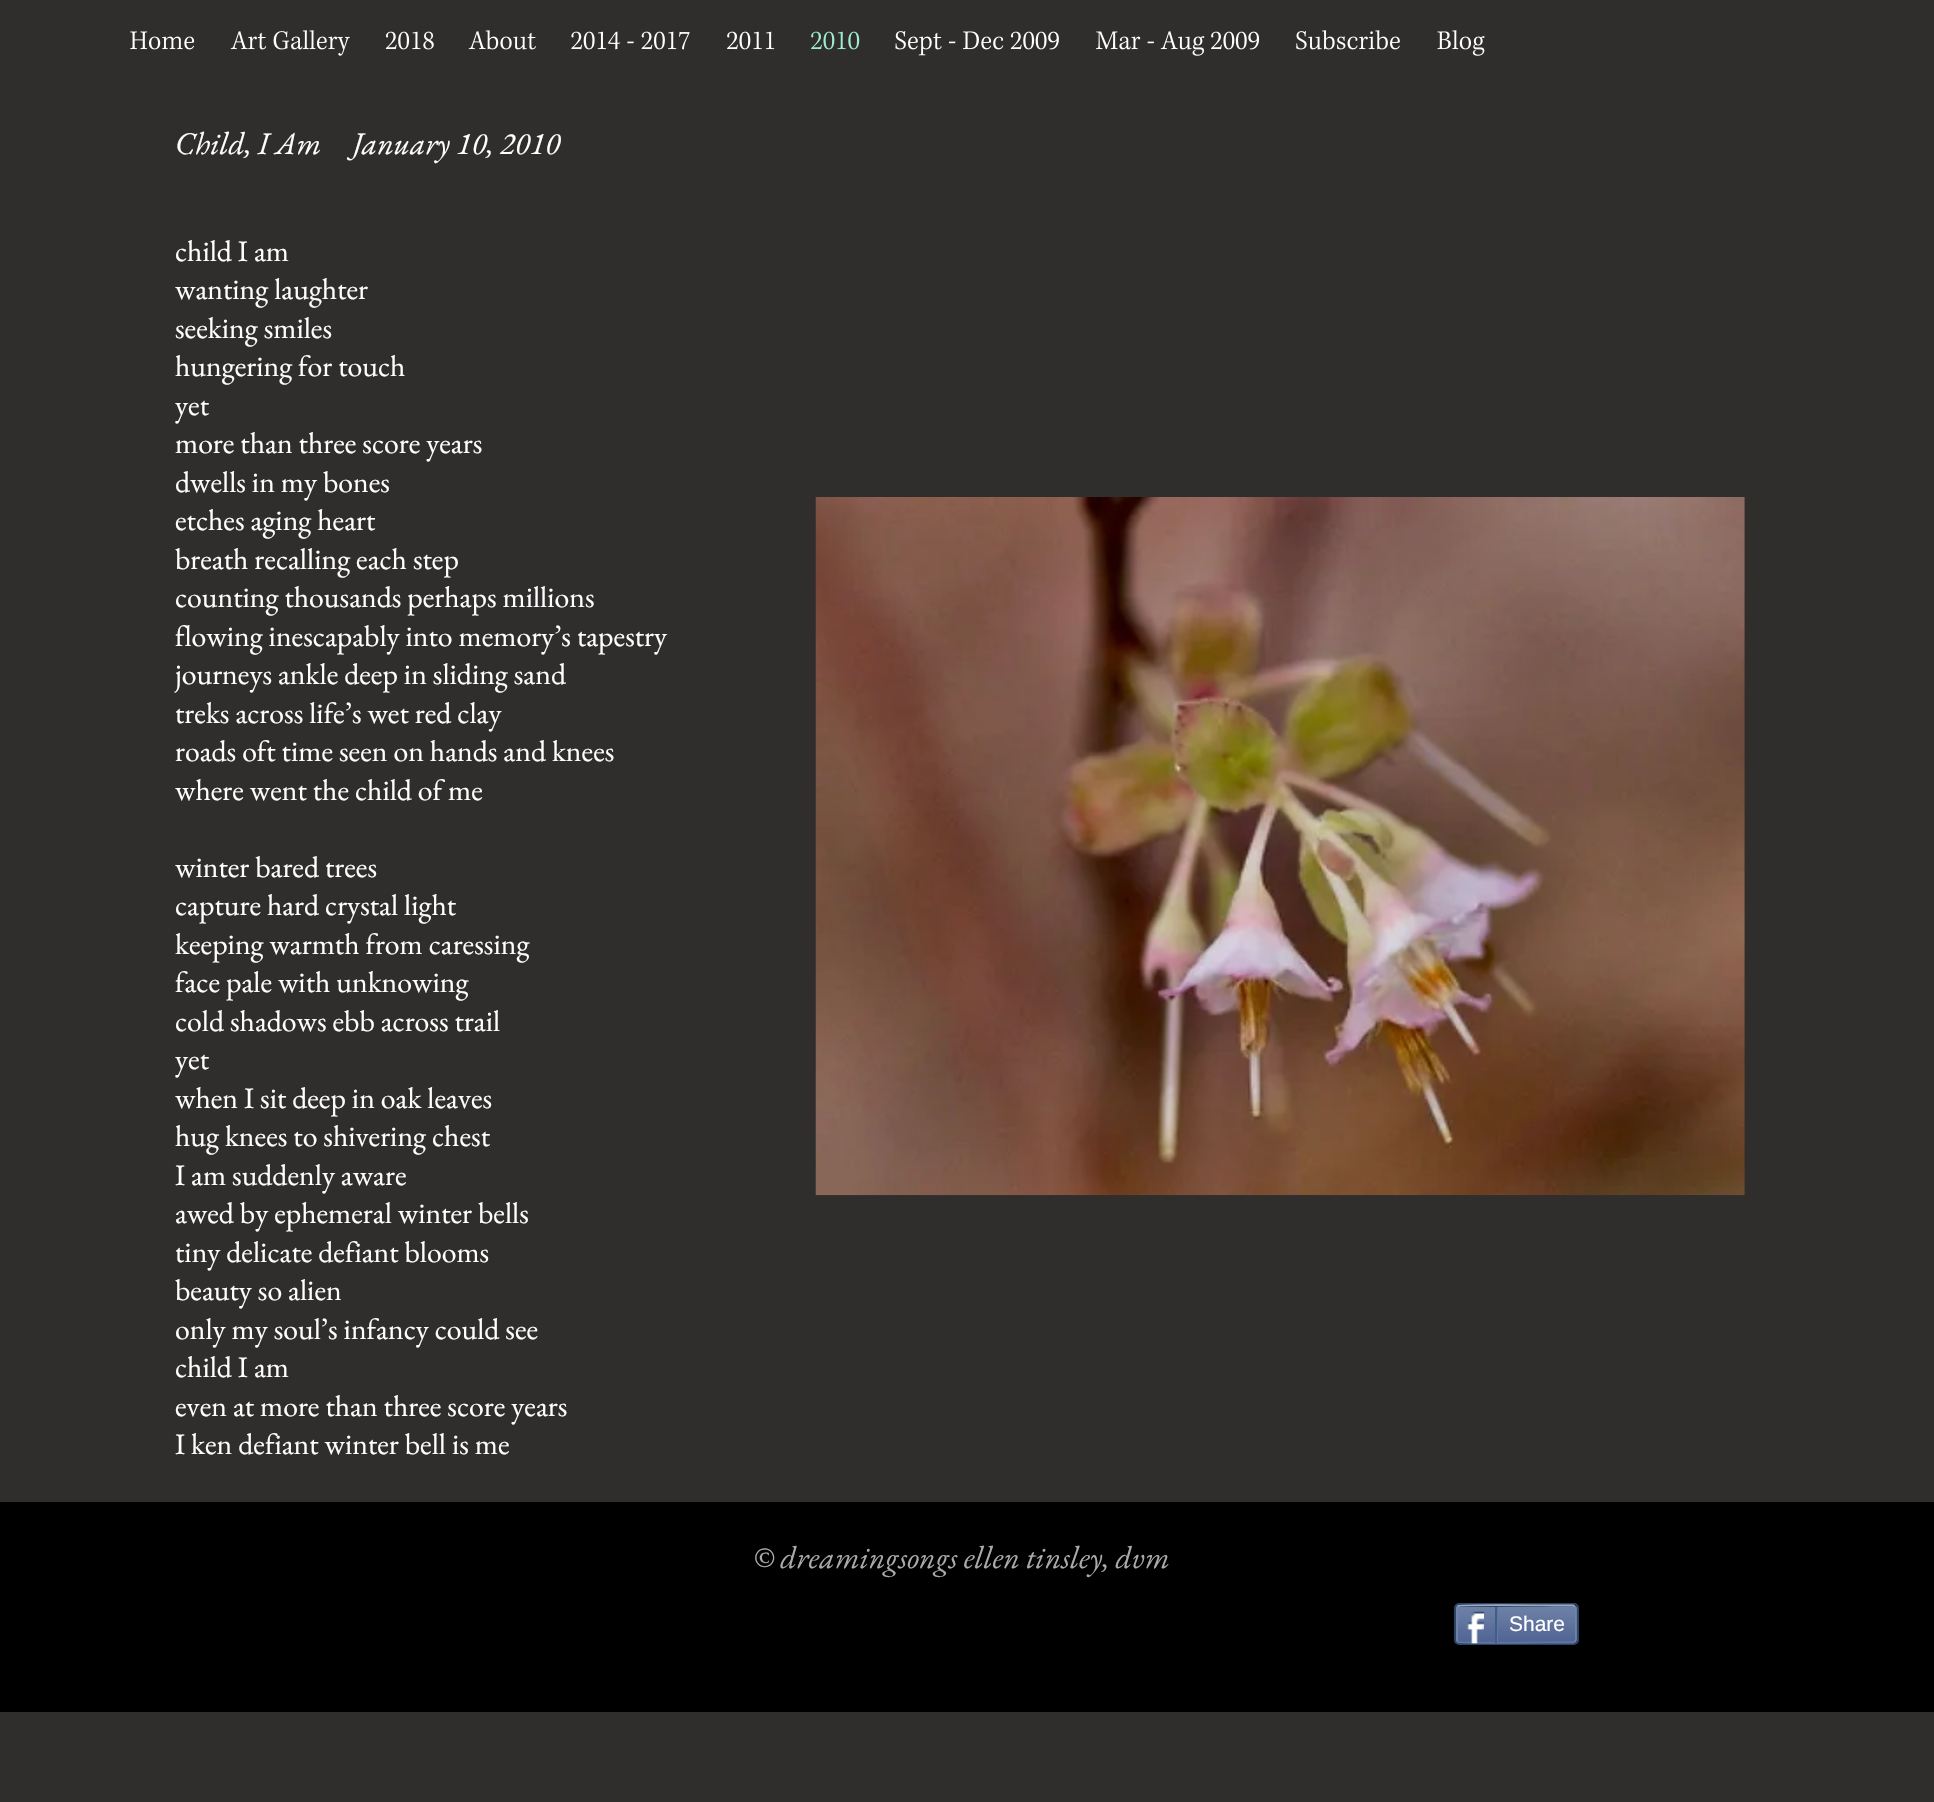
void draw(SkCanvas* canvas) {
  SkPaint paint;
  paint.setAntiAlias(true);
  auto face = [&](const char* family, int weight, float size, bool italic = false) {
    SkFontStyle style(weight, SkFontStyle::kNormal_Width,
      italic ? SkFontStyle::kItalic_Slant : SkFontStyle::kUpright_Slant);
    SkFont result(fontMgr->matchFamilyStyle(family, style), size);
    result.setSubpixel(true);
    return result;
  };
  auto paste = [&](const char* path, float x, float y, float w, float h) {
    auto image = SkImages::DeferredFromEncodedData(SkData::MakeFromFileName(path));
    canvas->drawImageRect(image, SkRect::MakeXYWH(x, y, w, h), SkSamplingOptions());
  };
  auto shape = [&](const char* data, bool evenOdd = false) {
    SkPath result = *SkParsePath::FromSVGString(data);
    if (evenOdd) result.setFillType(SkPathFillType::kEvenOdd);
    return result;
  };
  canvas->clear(0xff302d2d);
  paste("img/1.png", 130, 31, 65, 19);
  paste("img/2.png", 230, 30, 120, 26);
  paste("img/3.png", 385, 31, 49, 19);
  paste("img/4.png", 468, 30, 68, 20);
  paste("img/5.png", 571, 31, 119, 19);
  paste("img/6.png", 727, 31, 48, 19);
  paste("img/7.png", 811, 31, 49, 19);
  paste("img/8.png", 895, 31, 164, 25);
  paste("img/9.png", 1096, 31, 164, 25);
  paste("img/10.png", 1296, 30, 104, 20);
  paste("img/11.png", 1437, 30, 48, 26);
  paste("img/12.png", 815, 497, 930, 699);
  paint.setColor(0xff000000);
  canvas->drawRect(SkRect::MakeXYWH(0, 1502, 1934, 210), paint);
  paint.setStroke(true);
  paint.setStrokeWidth(2);
  paint.setColor(0xff2d4565);
  canvas->drawRoundRect(SkRect::MakeXYWH(1455, 1604, 123, 40), 4, 4, paint);
  paste("img/13.png", 1456, 1606, 121, 37);
  paint.setStrokeWidth(1.8f);
  paint.setColor(0xff9aabc6);
  canvas->drawPath(shape("M1457.5 1606.5L1458 1606C1460 1604.5 1544.5 1605.5 1554.5 1605.5H1573L1575 1606.5"), paint);
  paint.setColor(0xff6f83ad);
  canvas->drawPath(shape("M1575 1606.5C1575.5 1607 1576 1607.5 1576 1608V1640C1576 1640.5 1575.5 1641 1575 1641.5"), paint);
  paint.setColor(0xff6176a3);
  canvas->drawPath(shape("M1575 1641.5L1573 1642.5H1554.5C1544.5 1642.5 1460 1643.5 1458 1642L1457.5 1641.5"), paint);
  paint.setColor(0xff6f83ad);
  canvas->drawPath(shape("M1457.5 1641.5C1457 1641 1457 1640.5 1457 1640V1608C1457 1607.5 1457 1607 1457.5 1606.5"), paint);
  paste("img/14.png", 1466, 1611, 18, 33);
  paint.setStroke(false);
  paint.setColor(0xff425e85);
  canvas->drawRect(SkRect::MakeXYWH(1495, 1607, 2, 36), paint);
  paint.setColor(0xff6176a3);
  canvas->drawRect(SkRect::MakeXYWH(1497, 1607, 1, 35), paint);
  auto f0 = face("EB Garamond", 400, 31.5f, true);
  paint.setColor(0xffffffff);
  canvas->drawString("Child, I Am     January 10, 2010", 175, 154, f0, paint);
  auto f1 = face("EB Garamond", 400, 29.75f);
  {
    const struct { const char* s; float x, y; } items[] = {
      {"child I am", 175, 261},
      {"wanting laughter", 175, 299},
      {"seeking smiles", 175, 338},
      {"hungering for touch", 175, 376},
      {"yet", 175, 415},
      {"more than three score years", 175, 453},
      {"dwells in my bones", 175, 492},
      {"etches aging heart", 175, 530},
      {"breath recalling each step", 175, 569},
      {"counting thousands perhaps millions", 175, 607},
      {"flowing inescapably into memory’s tapestry", 175, 646},
      {"journeys ankle deep in sliding sand", 175, 684},
      {"treks across life’s wet red clay", 175, 723},
      {"roads oft time seen on hands and knees", 175, 761},
      {"where went the child of me", 175, 800},
      {"winter bared trees", 175, 877},
      {"capture hard crystal light", 175, 915},
      {"keeping warmth from caressing", 175, 954},
      {"face pale with unknowing", 175, 992},
      {"cold shadows ebb across trail", 175, 1031},
      {"yet", 175, 1069},
      {"when I sit deep in oak leaves", 175, 1108},
      {"hug knees to shivering chest", 175, 1146},
      {"I am suddenly aware", 175, 1185},
      {"awed by ephemeral winter bells", 175, 1223},
      {"tiny delicate defiant blooms", 175, 1262},
      {"beauty so alien", 175, 1300},
      {"only my soul’s infancy could see", 175, 1339},
      {"child I am", 175, 1377},
      {"even at more than three score years", 175, 1416},
      {"I ken defiant winter bell is me", 175, 1454},
    };
    for (auto [s, x, y] : items) {
      canvas->drawString(s, x, y, f1, paint);
    }
  }
  paint.setColor(0xffaaaaaa);
  canvas->drawString("© dreamingsongs ellen tinsley, dvm", 753, 1568, f0, paint);
  auto f2 = face("Liberation Sans", 400, 21);
  paint.setColor(0xffffffff);
  canvas->drawString("Share", 1509, 1631, f2, paint);
}
